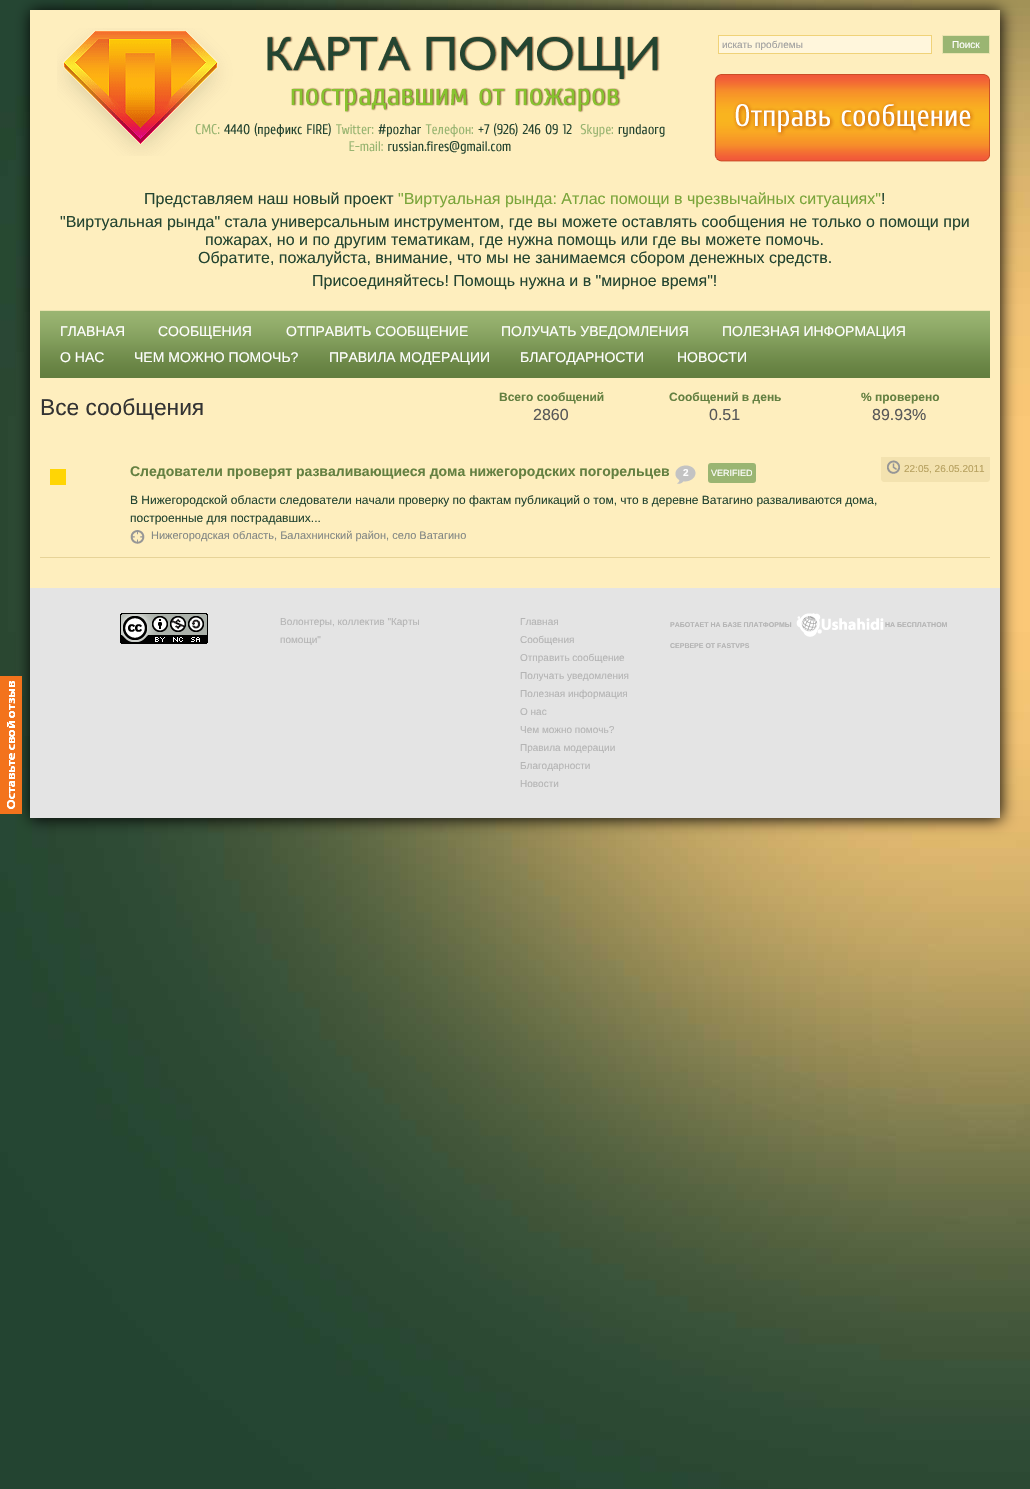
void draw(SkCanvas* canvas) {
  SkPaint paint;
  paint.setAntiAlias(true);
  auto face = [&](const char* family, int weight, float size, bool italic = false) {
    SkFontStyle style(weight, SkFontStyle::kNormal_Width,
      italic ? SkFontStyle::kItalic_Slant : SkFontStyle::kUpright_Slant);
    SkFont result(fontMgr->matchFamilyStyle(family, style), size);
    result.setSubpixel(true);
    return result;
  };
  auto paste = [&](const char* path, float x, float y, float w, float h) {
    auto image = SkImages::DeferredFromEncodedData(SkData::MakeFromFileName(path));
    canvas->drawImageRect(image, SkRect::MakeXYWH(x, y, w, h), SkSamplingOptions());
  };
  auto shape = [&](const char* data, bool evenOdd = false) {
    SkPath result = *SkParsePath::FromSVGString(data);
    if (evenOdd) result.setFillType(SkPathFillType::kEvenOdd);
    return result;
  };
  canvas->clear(0xffffffff);
  paste("img/1.png", 0, 0, 1030, 1489);
  paint.setColor(0xff000000);
  paint.setMaskFilter(SkMaskFilter::MakeBlur(kNormal_SkBlurStyle, 7.5f));
  canvas->drawRect(SkRect::MakeXYWH(31, 11, 970, 808), paint);
  paint.setMaskFilter(nullptr);
  paint.setColor(0xfff3731c);
  canvas->drawRect(SkRect::MakeXYWH(0, 676, 22, 138), paint);
  paste("img/2.png", 7, 681, 8, 128);
  paste("img/3.png", 7, 681, 8, 128);
  paint.setColor(0xfffeeebe);
  canvas->drawRect(SkRect::MakeXYWH(30, 10, 970, 578), paint);
  paste("img/4.png", 57, 28, 608, 128);
  paint.setColor(0xfffff6dc);
  canvas->drawRect(SkRect::MakeXYWH(718.5f, 35.5f, 213, 18), paint);
  paint.setStroke(true);
  paint.setStrokeWidth(1);
  paint.setColor(0xfff0d278);
  canvas->drawRect(SkRect::MakeXYWH(718.5f, 35.5f, 213, 18), paint);
  paint.setStroke(false);
  paint.setColor(0xff9ab572);
  canvas->drawRect(SkRect::MakeXYWH(942.5f, 35.5f, 47, 18), paint);
  paint.setStroke(true);
  paint.setColor(0xffeae3af);
  canvas->drawRect(SkRect::MakeXYWH(942.5f, 35.5f, 47, 18), paint);
  paste("img/5.png", 714, 74, 276, 88);
  paste("img/6.png", 40, 310, 950, 68);
  paint.setStroke(false);
  paint.setColor(0xffe7d398);
  canvas->drawRect(SkRect::MakeXYWH(40, 557, 950, 1), paint);
  paint.setColor(0xffffd505);
  canvas->drawRect(SkRect::MakeXYWH(50, 469, 16, 16), paint);
  paste("img/7.png", 675, 465, 21, 19);
  paint.setColor(0xff9ab572);
  canvas->drawRoundRect(SkRect::MakeXYWH(708, 463, 48, 20), 3, 3, paint);
  paint.setColor(0xfff3e2af);
  canvas->drawPath(shape("M881 457H990V479C990 480.5 988.5 482 987 482H884C882.5 482 881 480.5 881 479Z"), paint);
  paste("img/8.png", 887, 460, 13, 14);
  paste("img/9.png", 130, 530, 15, 14);
  paint.setColor(0xffe4e4e4);
  canvas->drawRect(SkRect::MakeXYWH(30, 588, 970, 230), paint);
  paste("img/10.png", 120, 613, 88, 31);
  paste("img/11.png", 796, 613, 88, 24);
  auto f0 = face("Liberation Sans", 400, 10);
  paint.setColor(0xff9e9e9e);
  canvas->drawString("искать проблемы", 722, 48, f0, paint);
  paint.setColor(0xffffffff);
  canvas->drawString("Поиск", 952, 48, f0, paint);
  auto f1 = face("Liberation Sans", 400, 16);
  paint.setColor(0xff244531);
  canvas->drawString("Представляем наш новый проект", 144, 204, f1, paint);
  paint.setColor(0xff7aa53b);
  canvas->drawString("\"Виртуальная рында: Атлас помощи в чрезвычайных ситуациях\"", 398, 204, f1, paint);
  paint.setColor(0xff244531);
  {
    const struct { const char* s; float x, y; } items[] = {
      {"!", 881, 204},
      {"\"Виртуальная рында\" стала универсальным инструментом, где вы можете оставлять сообщения не только о помощи при", 60, 227},
      {"пожарах, но и по другим тематикам, где нужна помощь или где вы можете помочь.", 205, 245},
      {"Обратите, пожалуйста, внимание, что мы не занимаемся сбором денежных средств.", 198, 263},
      {"Присоединяйтесь! Помощь нужна и в \"мирное время\"!", 312, 286},
    };
    for (auto [s, x, y] : items) {
      canvas->drawString(s, x, y, f1, paint);
    }
  }
  auto f2 = face("Liberation Sans", 400, 14);
  paint.setColor(0xffffffff);
  {
    const struct { const char* s; float x, y; } items[] = {
      {"ГЛАВНАЯ", 60, 336},
      {"СООБЩЕНИЯ", 158, 336},
      {"ОТПРАВИТЬ СООБЩЕНИЕ", 286, 336},
      {"ПОЛУЧАТЬ УВЕДОМЛЕНИЯ", 501, 336},
      {"ПОЛЕЗНАЯ ИНФОРМАЦИЯ", 722, 336},
      {"О НАС", 60, 362},
      {"ЧЕМ МОЖНО ПОМОЧЬ?", 134, 362},
      {"ПРАВИЛА МОДЕРАЦИИ", 329, 362},
      {"БЛАГОДАРНОСТИ", 520, 362},
      {"НОВОСТИ", 677, 362},
    };
    for (auto [s, x, y] : items) {
      canvas->drawString(s, x, y, f2, paint);
    }
  }
  auto f3 = face("Liberation Sans", 400, 22.75f);
  paint.setColor(0xff333333);
  canvas->drawString("Все сообщения", 40, 415, f3, paint);
  auto f4 = face("Liberation Sans", 700, 12);
  paint.setColor(0xff648041);
  {
    const struct { const char* s; float x, y; } items[] = {
      {"Всего сообщений", 499, 401},
      {"Сообщений в день", 669, 401},
      {"% проверено", 861, 401},
    };
    for (auto [s, x, y] : items) {
      canvas->drawString(s, x, y, f4, paint);
    }
  }
  paint.setColor(0xff585858);
  {
    const struct { const char* s; float x, y; } items[] = {
      {"2860", 533, 420},
      {"0.51", 709, 420},
      {"89.93%", 872, 420},
    };
    for (auto [s, x, y] : items) {
      canvas->drawString(s, x, y, f1, paint);
    }
  }
  auto f5 = face("Liberation Sans", 700, 14);
  paint.setColor(0xff648041);
  canvas->drawString("Следователи проверят разваливающиеся дома нижегородских погорельцев", 130, 476, f5, paint);
  auto f6 = face("Liberation Sans", 700, 10);
  paint.setColor(0xffffffff);
  canvas->drawString("2", 683, 476, f6, paint);
  auto f7 = face("Liberation Sans", 400, 9);
  canvas->drawString("VERIFIED", 711, 476, f7, paint);
  paint.setColor(0xffb7a15f);
  canvas->drawString("22:05, 26.05.2011", 904, 472, f0, paint);
  auto f8 = face("Liberation Sans", 400, 12);
  paint.setColor(0xff244531);
  canvas->drawString("В Нижегородской области следователи начали проверку по фактам публикаций о том, что в деревне Ватагино разваливаются дома,", 130, 504, f8, paint);
  canvas->drawString("построенные для пострадавших...", 130, 522, f8, paint);
  auto f9 = face("Liberation Sans", 400, 11);
  paint.setColor(0xff828784);
  canvas->drawString("Нижегородская область, Балахнинский район, село Ватагино", 151, 539, f9, paint);
  paint.setColor(0xffb4b4b4);
  {
    const struct { const char* s; float x, y; } items[] = {
      {"Волонтеры, коллектив \"Карты", 280, 625},
      {"помощи\"", 280, 643},
      {"Главная", 520, 625},
      {"Сообщения", 520, 643},
      {"Отправить сообщение", 520, 661},
      {"Получать уведомления", 520, 679},
      {"Полезная информация", 520, 697},
      {"О нас", 520, 715},
      {"Чем можно помочь?", 520, 733},
      {"Правила модерации", 520, 751},
      {"Благодарности", 520, 769},
      {"Новости", 520, 787},
    };
    for (auto [s, x, y] : items) {
      canvas->drawString(s, x, y, f0, paint);
    }
  }
  auto f10 = face("Liberation Sans", 700, 7);
  {
    const struct { const char* s; float x, y; } items[] = {
      {"РАБОТАЕТ НА БАЗЕ ПЛАТФОРМЫ", 670, 627},
      {"НА БЕСПЛАТНОМ", 885, 627},
      {"СЕРВЕРЕ ОТ FASTVPS", 670, 648},
    };
    for (auto [s, x, y] : items) {
      canvas->drawString(s, x, y, f10, paint);
    }
  }
}
